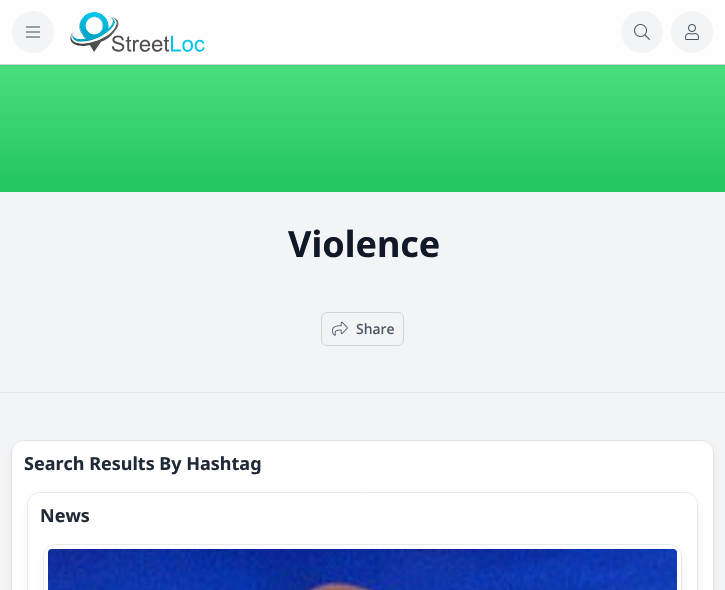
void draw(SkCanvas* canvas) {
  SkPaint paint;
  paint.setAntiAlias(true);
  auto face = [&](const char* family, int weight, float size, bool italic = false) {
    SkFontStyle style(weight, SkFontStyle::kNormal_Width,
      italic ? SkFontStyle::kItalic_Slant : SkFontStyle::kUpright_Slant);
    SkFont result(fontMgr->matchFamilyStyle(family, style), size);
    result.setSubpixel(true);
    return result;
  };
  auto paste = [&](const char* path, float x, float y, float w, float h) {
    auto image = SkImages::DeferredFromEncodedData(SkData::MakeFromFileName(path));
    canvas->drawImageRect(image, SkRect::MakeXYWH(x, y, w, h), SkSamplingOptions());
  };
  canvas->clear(0xfff3f4f6);
  {
    const SkColor colors[] = {0xff4ade80, 0xff22c55e};
    const float stops[] = {0, 1};
    const SkPoint ends[] = {{363, 64}, {363, 192}};
    paint.setShader(SkGradientShader::MakeLinear(ends, colors, stops, 2, SkTileMode::kClamp));
    paint.setAlpha(255);
  }
  canvas->drawRect(SkRect::MakeXYWH(0, 65, 725, 127), paint);
  paint.setShader(nullptr);
  paint.setColor(0x1a000000);
  paint.setMaskFilter(SkMaskFilter::MakeBlur(kNormal_SkBlurStyle, 1.5f));
  canvas->drawRect(SkRect::MakeXYWH(0, 1, 725, 64), paint);
  paint.setMaskFilter(nullptr);
  paint.setStroke(true);
  paint.setStrokeWidth(1);
  paint.setColor(0xffd1d5db);
  canvas->drawRect(SkRect::MakeXYWH(-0.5f, -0.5f, 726, 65), paint);
  paint.setStroke(false);
  paint.setColor(0xfffefeff);
  canvas->drawRect(SkRect::MakeXYWH(0, 0, 725, 64), paint);
  paint.setColor(0xfff3f4f6);
  canvas->drawCircle(33, 32, 21, paint);
  paste("img/1.png", 26, 26, 14, 12);
  paste("img/2.png", 70, 12, 135, 40);
  canvas->drawCircle(642, 32, 21, paint);
  paste("img/3.png", 634, 24, 16, 16);
  canvas->drawCircle(692, 32, 21, paint);
  paste("img/4.png", 685, 24, 14, 16);
  paint.setStroke(true);
  paint.setColor(0xffd1d5db);
  canvas->drawRoundRect(SkRect::MakeXYWH(321.5f, 312.5f, 82, 33), 5.5f, 5.5f, paint);
  paste("img/5.png", 332, 321, 16, 15);
  paint.setStroke(false);
  paint.setColor(0xffe5e7eb);
  canvas->drawRect(SkRect::MakeXYWH(0, 392, 725, 1), paint);
  paint.setColor(0x1a000000);
  paint.setMaskFilter(SkMaskFilter::MakeBlur(kNormal_SkBlurStyle, 3));
  canvas->drawRoundRect(SkRect::MakeXYWH(13, 446, 699, 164), 11, 11, paint);
  paint.setMaskFilter(nullptr);
  paint.setStroke(true);
  paint.setColor(0x80d1d5db);
  canvas->drawRoundRect(SkRect::MakeXYWH(11.5f, 440.5f, 702, 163), 12.5f, 12.5f, paint);
  paint.setStroke(false);
  paint.setColor(0xffffffff);
  canvas->drawRoundRect(SkRect::MakeXYWH(12, 441, 701, 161), 12, 12, paint);
  paint.setColor(0x1a000000);
  paint.setMaskFilter(SkMaskFilter::MakeBlur(kNormal_SkBlurStyle, 3));
  canvas->drawRoundRect(SkRect::MakeXYWH(29, 498, 667, 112), 11, 11, paint);
  paint.setMaskFilter(nullptr);
  paint.setStroke(true);
  paint.setColor(0x80d1d5db);
  canvas->drawRoundRect(SkRect::MakeXYWH(27.5f, 492.5f, 670, 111), 12.5f, 12.5f, paint);
  paint.setStroke(false);
  paint.setColor(0xffffffff);
  canvas->drawRoundRect(SkRect::MakeXYWH(28, 493, 669, 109), 12, 12, paint);
  paint.setColor(0x1a000000);
  paint.setMaskFilter(SkMaskFilter::MakeBlur(kNormal_SkBlurStyle, 3));
  canvas->drawRoundRect(SkRect::MakeXYWH(45, 550, 635, 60), 11, 11, paint);
  paint.setMaskFilter(nullptr);
  paint.setStroke(true);
  paint.setColor(0x80d1d5db);
  canvas->drawRoundRect(SkRect::MakeXYWH(43.5f, 544.5f, 638, 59), 12.5f, 12.5f, paint);
  paint.setStroke(false);
  paint.setColor(0xffffffff);
  canvas->drawRoundRect(SkRect::MakeXYWH(44, 545, 637, 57), 12, 12, paint);
  paste("img/6.png", 48, 549, 629, 41);
  auto f0 = face("Noto Sans", 700, 36);
  paint.setColor(0xff111827);
  canvas->drawString("Violence", 288, 257, f0, paint);
  auto f1 = face("Noto Sans", 500, 14);
  paint.setColor(0xff4b5563);
  canvas->drawString("Share", 356, 334, f1, paint);
  auto f2 = face("Noto Sans", 700, 18);
  paint.setColor(0xff1f2937);
  canvas->drawString("Search Results By Hashtag", 24, 470, f2, paint);
  canvas->drawString("News", 40, 522, f2, paint);
}
